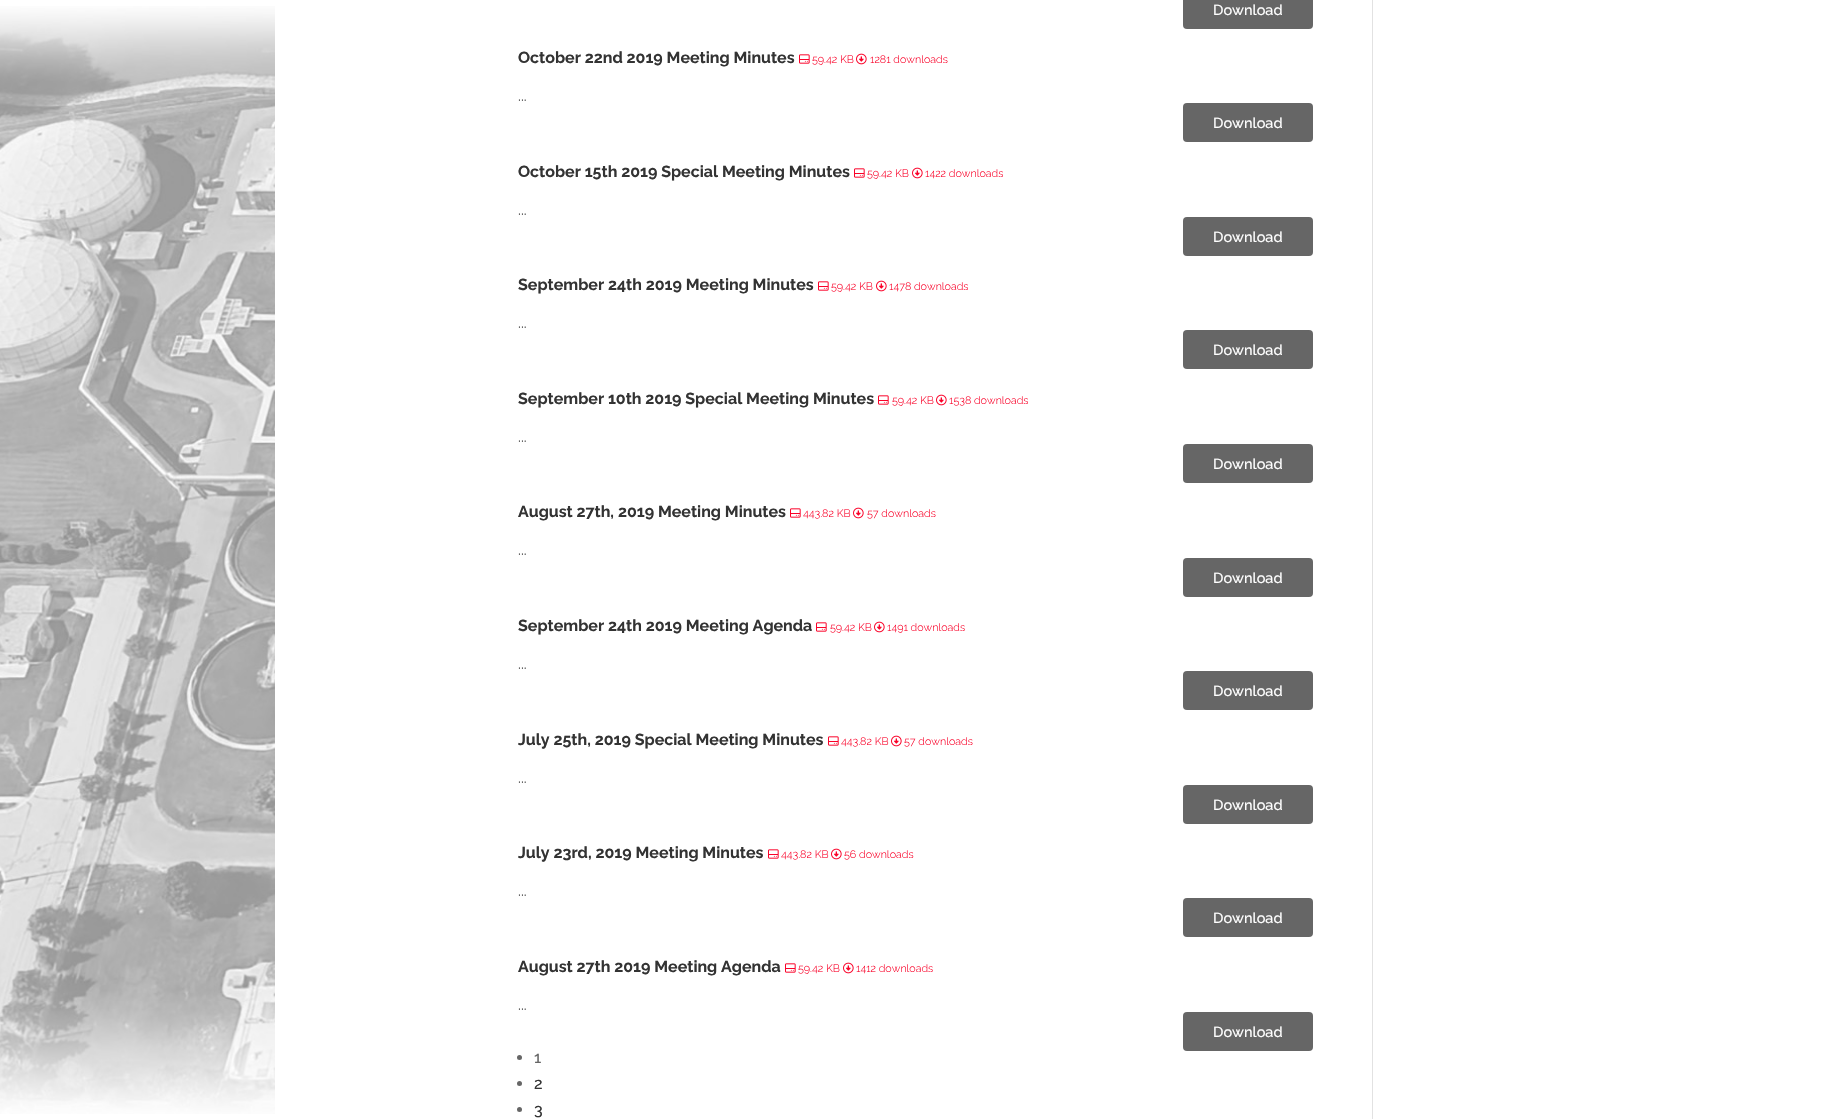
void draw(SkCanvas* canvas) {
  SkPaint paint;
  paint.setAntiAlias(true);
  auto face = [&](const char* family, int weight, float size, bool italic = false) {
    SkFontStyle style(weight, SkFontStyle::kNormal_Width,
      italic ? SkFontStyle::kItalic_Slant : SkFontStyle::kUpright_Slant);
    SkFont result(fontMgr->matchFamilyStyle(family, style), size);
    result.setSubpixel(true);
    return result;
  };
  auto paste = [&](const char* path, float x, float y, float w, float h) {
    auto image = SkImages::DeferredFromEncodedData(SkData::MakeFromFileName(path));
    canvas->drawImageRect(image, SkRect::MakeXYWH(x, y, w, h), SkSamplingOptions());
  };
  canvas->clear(0xffffffff);
  paste("img/1.png", 0, 6, 275, 1108);
  paint.setColor(0xff666666);
  canvas->drawRoundRect(SkRect::MakeXYWH(1183, -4, 130, 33), 4, 4, paint);
  paste("img/2.png", 799, 54, 11, 10);
  paste("img/3.png", 856, 53, 11, 12);
  canvas->drawRoundRect(SkRect::MakeXYWH(1183, 103, 130, 39), 4, 4, paint);
  paste("img/2.png", 854, 168, 11, 10);
  paste("img/3.png", 912, 167, 11, 12);
  canvas->drawRoundRect(SkRect::MakeXYWH(1183, 217, 130, 39), 4, 4, paint);
  paste("img/2.png", 818, 281, 11, 10);
  paste("img/3.png", 876, 280, 11, 12);
  canvas->drawRoundRect(SkRect::MakeXYWH(1183, 330, 130, 39), 4, 4, paint);
  paste("img/2.png", 878, 395, 11, 10);
  paste("img/3.png", 936, 394, 11, 12);
  canvas->drawRoundRect(SkRect::MakeXYWH(1183, 444, 130, 39), 4, 4, paint);
  paste("img/2.png", 790, 508, 11, 10);
  paste("img/3.png", 853, 507, 11, 12);
  canvas->drawRoundRect(SkRect::MakeXYWH(1183, 558, 130, 39), 4, 4, paint);
  paste("img/2.png", 816, 622, 11, 10);
  paste("img/3.png", 874, 621, 11, 12);
  canvas->drawRoundRect(SkRect::MakeXYWH(1183, 671, 130, 39), 4, 4, paint);
  paste("img/2.png", 828, 736, 11, 10);
  paste("img/3.png", 891, 735, 11, 12);
  canvas->drawRoundRect(SkRect::MakeXYWH(1183, 785, 130, 39), 4, 4, paint);
  paste("img/2.png", 768, 849, 11, 10);
  paste("img/3.png", 831, 848, 11, 12);
  canvas->drawRoundRect(SkRect::MakeXYWH(1183, 898, 130, 39), 4, 4, paint);
  paste("img/2.png", 785, 963, 11, 10);
  paste("img/3.png", 843, 962, 11, 12);
  canvas->drawRoundRect(SkRect::MakeXYWH(1183, 1012, 130, 39), 4, 4, paint);
  canvas->drawCircle(519.5f, 1057.5f, 2.5f, paint);
  canvas->drawCircle(519.5f, 1083.5f, 2.5f, paint);
  canvas->drawCircle(519.5f, 1109.5f, 2.5f, paint);
  paint.setColor(0xffe2e2e2);
  canvas->drawRect(SkRect::MakeXYWH(1372, 0, 1, 1119), paint);
  auto f0 = face("Raleway", 500, 14.5f);
  paint.setColor(0xffffffff);
  canvas->drawString("Download", 1213, 15, f0, paint);
  auto f1 = face("Raleway", 700, 16);
  paint.setColor(0xff333333);
  canvas->drawString("October 22nd 2019 Meeting Minutes", 518, 63, f1, paint);
  auto f2 = face("Raleway", 300, 10.75f);
  paint.setColor(0xfffa0128);
  canvas->drawString("59.42 KB", 812, 63, f2, paint);
  canvas->drawString("1281 downloads", 870, 63, f2, paint);
  paint.setColor(0xff666666);
  canvas->drawString("...", 518, 101, f0, paint);
  paint.setColor(0xffffffff);
  canvas->drawString("Download", 1213, 128, f0, paint);
  paint.setColor(0xff333333);
  canvas->drawString("October 15th 2019 Special Meeting Minutes", 518, 177, f1, paint);
  paint.setColor(0xfffa0128);
  canvas->drawString("59.42 KB", 867, 177, f2, paint);
  canvas->drawString("1422 downloads", 925, 177, f2, paint);
  paint.setColor(0xff666666);
  canvas->drawString("...", 518, 215, f0, paint);
  paint.setColor(0xffffffff);
  canvas->drawString("Download", 1213, 242, f0, paint);
  paint.setColor(0xff333333);
  canvas->drawString("September 24th 2019 Meeting Minutes", 518, 290, f1, paint);
  paint.setColor(0xfffa0128);
  canvas->drawString("59.42 KB", 831, 290, f2, paint);
  canvas->drawString("1478 downloads", 889, 290, f2, paint);
  paint.setColor(0xff666666);
  canvas->drawString("...", 518, 328, f0, paint);
  paint.setColor(0xffffffff);
  canvas->drawString("Download", 1213, 355, f0, paint);
  paint.setColor(0xff333333);
  canvas->drawString("September 10th 2019 Special Meeting Minutes", 518, 404, f1, paint);
  paint.setColor(0xfffa0128);
  canvas->drawString("59.42 KB", 892, 404, f2, paint);
  canvas->drawString("1538 downloads", 949, 404, f2, paint);
  paint.setColor(0xff666666);
  canvas->drawString("...", 518, 442, f0, paint);
  paint.setColor(0xffffffff);
  canvas->drawString("Download", 1213, 469, f0, paint);
  paint.setColor(0xff333333);
  canvas->drawString("August 27th, 2019 Meeting Minutes", 518, 517, f1, paint);
  paint.setColor(0xfffa0128);
  canvas->drawString("443.82 KB", 803, 517, f2, paint);
  canvas->drawString("57 downloads", 867, 517, f2, paint);
  paint.setColor(0xff666666);
  canvas->drawString("...", 518, 555, f0, paint);
  paint.setColor(0xffffffff);
  canvas->drawString("Download", 1213, 583, f0, paint);
  paint.setColor(0xff333333);
  canvas->drawString("September 24th 2019 Meeting Agenda", 518, 631, f1, paint);
  paint.setColor(0xfffa0128);
  canvas->drawString("59.42 KB", 830, 631, f2, paint);
  canvas->drawString("1491 downloads", 887, 631, f2, paint);
  paint.setColor(0xff666666);
  canvas->drawString("...", 518, 669, f0, paint);
  paint.setColor(0xffffffff);
  canvas->drawString("Download", 1213, 696, f0, paint);
  paint.setColor(0xff333333);
  canvas->drawString("July 25th, 2019 Special Meeting Minutes", 518, 745, f1, paint);
  paint.setColor(0xfffa0128);
  canvas->drawString("443.82 KB", 841, 745, f2, paint);
  canvas->drawString("57 downloads", 904, 745, f2, paint);
  paint.setColor(0xff666666);
  canvas->drawString("...", 518, 783, f0, paint);
  paint.setColor(0xffffffff);
  canvas->drawString("Download", 1213, 810, f0, paint);
  paint.setColor(0xff333333);
  canvas->drawString("July 23rd, 2019 Meeting Minutes", 518, 858, f1, paint);
  paint.setColor(0xfffa0128);
  canvas->drawString("443.82 KB", 781, 858, f2, paint);
  canvas->drawString("56 downloads", 844, 858, f2, paint);
  paint.setColor(0xff666666);
  canvas->drawString("...", 518, 896, f0, paint);
  paint.setColor(0xffffffff);
  canvas->drawString("Download", 1213, 923, f0, paint);
  paint.setColor(0xff333333);
  canvas->drawString("August 27th 2019 Meeting Agenda", 518, 972, f1, paint);
  paint.setColor(0xfffa0128);
  canvas->drawString("59.42 KB", 798, 972, f2, paint);
  canvas->drawString("1412 downloads", 856, 972, f2, paint);
  paint.setColor(0xff666666);
  canvas->drawString("...", 518, 1010, f0, paint);
  paint.setColor(0xffffffff);
  canvas->drawString("Download", 1213, 1037, f0, paint);
  auto f3 = face("Raleway", 500, 16);
  paint.setColor(0xff666666);
  canvas->drawString("1", 534, 1063, f3, paint);
  paint.setColor(0xff333333);
  canvas->drawString("2", 534, 1089, f3, paint);
  canvas->drawString("3", 534, 1115, f3, paint);
}
